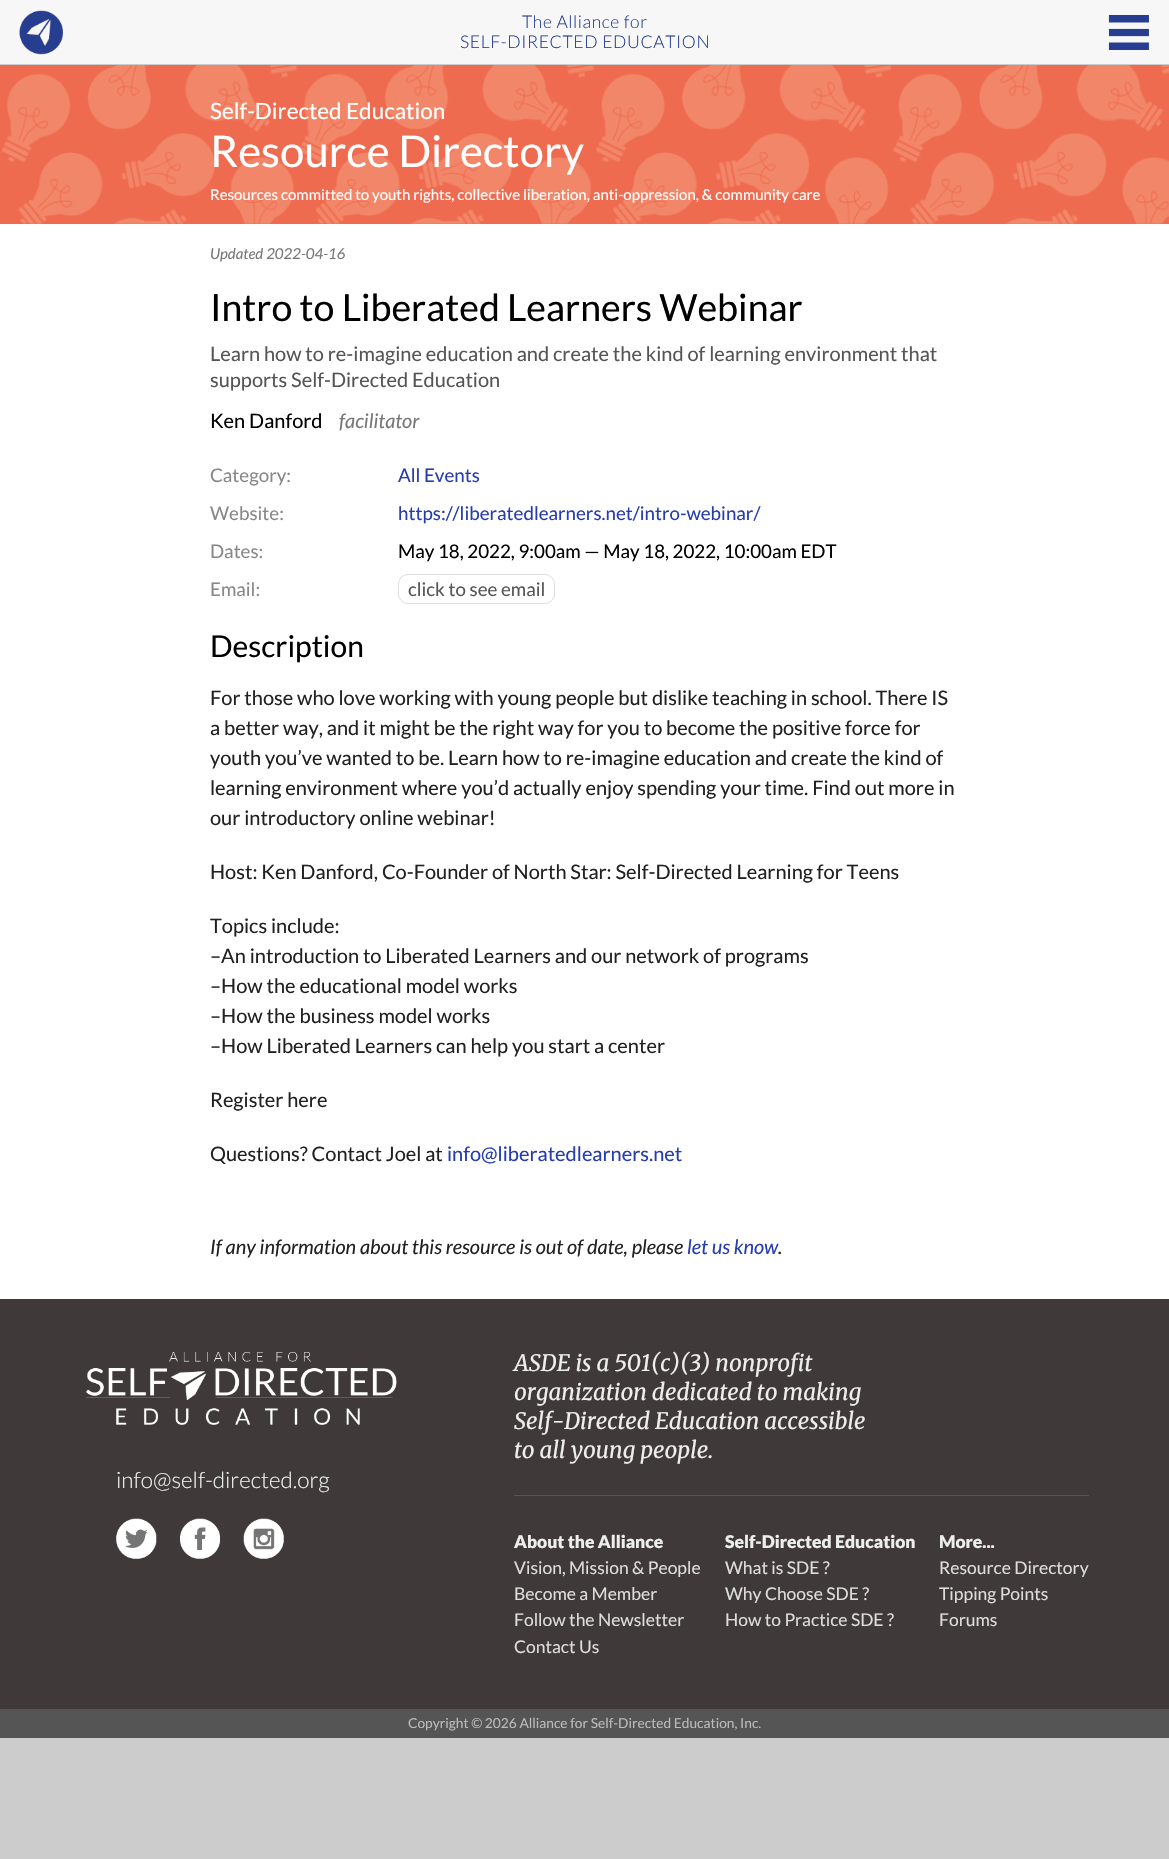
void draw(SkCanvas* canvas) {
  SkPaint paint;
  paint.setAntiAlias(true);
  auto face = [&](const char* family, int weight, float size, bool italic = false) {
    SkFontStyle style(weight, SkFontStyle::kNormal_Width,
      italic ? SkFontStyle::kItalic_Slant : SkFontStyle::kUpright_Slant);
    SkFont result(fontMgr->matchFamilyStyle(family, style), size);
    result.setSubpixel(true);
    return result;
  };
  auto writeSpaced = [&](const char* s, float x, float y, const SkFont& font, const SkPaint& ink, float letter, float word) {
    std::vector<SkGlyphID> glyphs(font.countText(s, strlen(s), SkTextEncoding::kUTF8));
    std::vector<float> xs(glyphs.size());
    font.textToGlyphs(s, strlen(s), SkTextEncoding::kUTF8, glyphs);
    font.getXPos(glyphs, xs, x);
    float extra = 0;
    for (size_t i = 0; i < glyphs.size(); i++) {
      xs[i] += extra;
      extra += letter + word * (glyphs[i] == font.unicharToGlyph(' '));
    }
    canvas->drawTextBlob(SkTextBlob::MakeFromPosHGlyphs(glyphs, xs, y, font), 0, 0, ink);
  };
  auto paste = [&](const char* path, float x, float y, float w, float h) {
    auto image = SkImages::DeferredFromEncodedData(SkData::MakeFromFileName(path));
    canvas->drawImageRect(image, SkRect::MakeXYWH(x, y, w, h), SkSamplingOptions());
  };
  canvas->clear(0xffcccccc);
  paint.setColor(0xffffffff);
  canvas->drawRect(SkRect::MakeXYWH(0, 224, 1169, 1075), paint);
  paint.setColor(0xfff7f7f7);
  canvas->drawRect(SkRect::MakeXYWH(0, 0, 1169, 64), paint);
  paste("img/1.png", 19, 10, 44, 45);
  paste("img/2.png", 1108, 15, 41, 35);
  paint.setColor(0xffef6b4f);
  canvas->drawRect(SkRect::MakeXYWH(0, 65, 1169, 159), paint);
  paste("img/3.png", 2, 65, 1167, 159);
  paint.setStroke(true);
  paint.setStrokeWidth(1);
  paint.setColor(0xffdddddd);
  canvas->drawRoundRect(SkRect::MakeXYWH(398.5f, 574.5f, 156, 29), 9.5f, 9.5f, paint);
  paint.setStroke(false);
  paint.setColor(0xff3f3939);
  canvas->drawRect(SkRect::MakeXYWH(0, 1299, 1169, 410), paint);
  paste("img/4.png", 86, 1352, 311, 73);
  paste("img/5.png", 116, 1518, 41, 41);
  paste("img/6.png", 180, 1518, 40, 41);
  paste("img/7.png", 243, 1518, 41, 41);
  paint.setColor(0xff555555);
  canvas->drawRect(SkRect::MakeXYWH(514, 1495, 575, 1), paint);
  canvas->drawRect(SkRect::MakeXYWH(0, 1709, 1169, 29), paint);
  auto f0 = face("Lato", 300, 17.5f);
  paint.setColor(0xff263d90);
  writeSpaced("The Alliance for", 522, 28, f0, paint, 0.6f, 0);
  writeSpaced("SELF-DIRECTED EDUCATION", 460, 48, f0, paint, 0.6f, 0);
  auto f1 = face("Lato", 400, 22.5f);
  paint.setColor(0xffffffff);
  canvas->drawString("Self-Directed Education", 210, 119, f1, paint);
  auto f2 = face("Lato", 400, 43.75f);
  canvas->drawString("Resource Directory", 210, 167, f2, paint);
  auto f3 = face("Lato", 400, 15);
  canvas->drawString("Resources committed to youth rights, collective liberation, anti-oppression, & community care", 210, 200, f3, paint);
  auto f4 = face("Lato", 400, 15, true);
  paint.setColor(0xff777777);
  canvas->drawString("Updated 2022-04-16", 210, 259, f4, paint);
  auto f5 = face("Lato", 400, 37.5f);
  paint.setColor(0xff000000);
  canvas->drawString("Intro to Liberated Learners Webinar", 210, 321, f5, paint);
  auto f6 = face("Lato", 400, 20);
  paint.setColor(0xff555555);
  canvas->drawString("Learn how to re-imagine education and create the kind of learning environment that", 210, 361, f6, paint);
  canvas->drawString("supports Self-Directed Education", 210, 387, f6, paint);
  paint.setColor(0xff000000);
  canvas->drawString("Ken Danford", 210, 428, f6, paint);
  auto f7 = face("Lato", 400, 20, true);
  paint.setColor(0xff777777);
  canvas->drawString("facilitator", 339, 428, f7, paint);
  auto f8 = face("Lato", 400, 18.75f);
  paint.setColor(0xff888888);
  canvas->drawString("Category:", 210, 482, f8, paint);
  paint.setColor(0xff263db0);
  canvas->drawString("All Events", 398, 482, f8, paint);
  paint.setColor(0xff888888);
  canvas->drawString("Website:", 210, 520, f8, paint);
  paint.setColor(0xff263db0);
  canvas->drawString("https://liberatedlearners.net/intro-webinar/", 398, 520, f8, paint);
  paint.setColor(0xff888888);
  canvas->drawString("Dates:", 210, 558, f8, paint);
  paint.setColor(0xff000000);
  canvas->drawString("May 18, 2022, 9:00am — May 18, 2022, 10:00am EDT", 398, 558, f8, paint);
  paint.setColor(0xff888888);
  canvas->drawString("Email:", 210, 596, f8, paint);
  paint.setColor(0xff555555);
  canvas->drawString("click to see email", 408, 596, f8, paint);
  auto f9 = face("Lato", 400, 30);
  paint.setColor(0xff000000);
  canvas->drawString("Description", 210, 657, f9, paint);
  paint.setColor(0xff212121);
  {
    const struct { const char* s; float x, y; } items[] = {
      {"For those who love working with young people but dislike teaching in school. There IS", 210, 705},
      {"a better way, and it might be the right way for you to become the positive force for", 210, 735},
      {"youth you’ve wanted to be. Learn how to re-imagine education and create the kind of", 210, 765},
      {"learning environment where you’d actually enjoy spending your time. Find out more in", 210, 795},
      {"our introductory online webinar!", 210, 825},
      {"Host: Ken Danford, Co-Founder of North Star: Self-Directed Learning for Teens", 210, 879},
      {"Topics include:", 210, 933},
      {"–An introduction to Liberated Learners and our network of programs", 210, 963},
      {"–How the educational model works", 210, 993},
      {"–How the business model works", 210, 1023},
      {"–How Liberated Learners can help you start a center", 210, 1053},
      {"Register here", 210, 1107},
      {"Questions? Contact Joel at", 210, 1161},
    };
    for (auto [s, x, y] : items) {
      canvas->drawString(s, x, y, f6, paint);
    }
  }
  paint.setColor(0xff263db0);
  canvas->drawString("info@liberatedlearners.net", 447, 1161, f6, paint);
  paint.setColor(0xff212121);
  canvas->drawString("If any information about this resource is out of date, please", 210, 1254, f7, paint);
  paint.setColor(0xff263db0);
  canvas->drawString("let us know", 687, 1254, f7, paint);
  paint.setColor(0xff212121);
  canvas->drawString(".", 778, 1254, f7, paint);
  auto f10 = face("Lato", 300, 22.5f);
  paint.setColor(0xffeeeeee);
  canvas->drawString("info@self-directed.org", 116, 1488, f10, paint);
  auto f11 = face("Merriweather", 400, 22.5f, true);
  {
    const struct { const char* s; float x, y; } items[] = {
      {"ASDE is a 501(c)(3) nonprofit", 514, 1371},
      {"organization dedicated to making", 514, 1400},
      {"Self-Directed Education accessible", 514, 1429},
      {"to all young people.", 514, 1458},
    };
    for (auto [s, x, y] : items) {
      canvas->drawString(s, x, y, f11, paint);
    }
  }
  auto f12 = face("Lato", 900, 17.5f);
  canvas->drawString("About the Alliance", 514, 1548, f12, paint);
  auto f13 = face("Lato", 400, 17.5f);
  paint.setColor(0xffdddddd);
  {
    const struct { const char* s; float x, y; } items[] = {
      {"Vision, Mission & People", 514, 1574},
      {"Become a Member", 514, 1600},
      {"Follow the Newsletter", 514, 1626},
      {"Contact Us", 514, 1653},
    };
    for (auto [s, x, y] : items) {
      canvas->drawString(s, x, y, f13, paint);
    }
  }
  paint.setColor(0xffeeeeee);
  canvas->drawString("Self-Directed Education", 725, 1548, f12, paint);
  paint.setColor(0xffdddddd);
  {
    const struct { const char* s; float x, y; } items[] = {
      {"What is SDE ?", 725, 1574},
      {"Why Choose SDE ?", 725, 1600},
      {"How to Practice SDE ?", 725, 1626},
    };
    for (auto [s, x, y] : items) {
      canvas->drawString(s, x, y, f13, paint);
    }
  }
  paint.setColor(0xffeeeeee);
  canvas->drawString("More...", 939, 1548, f12, paint);
  paint.setColor(0xffdddddd);
  {
    const struct { const char* s; float x, y; } items[] = {
      {"Resource Directory", 939, 1574},
      {"Tipping Points", 939, 1600},
      {"Forums", 939, 1626},
    };
    for (auto [s, x, y] : items) {
      canvas->drawString(s, x, y, f13, paint);
    }
  }
  auto f14 = face("Lato", 400, 13.75f);
  paint.setColor(0xffbbbbbb);
  canvas->drawString("Copyright © 2026 Alliance for Self-Directed Education, Inc.", 408, 1728, f14, paint);
}
